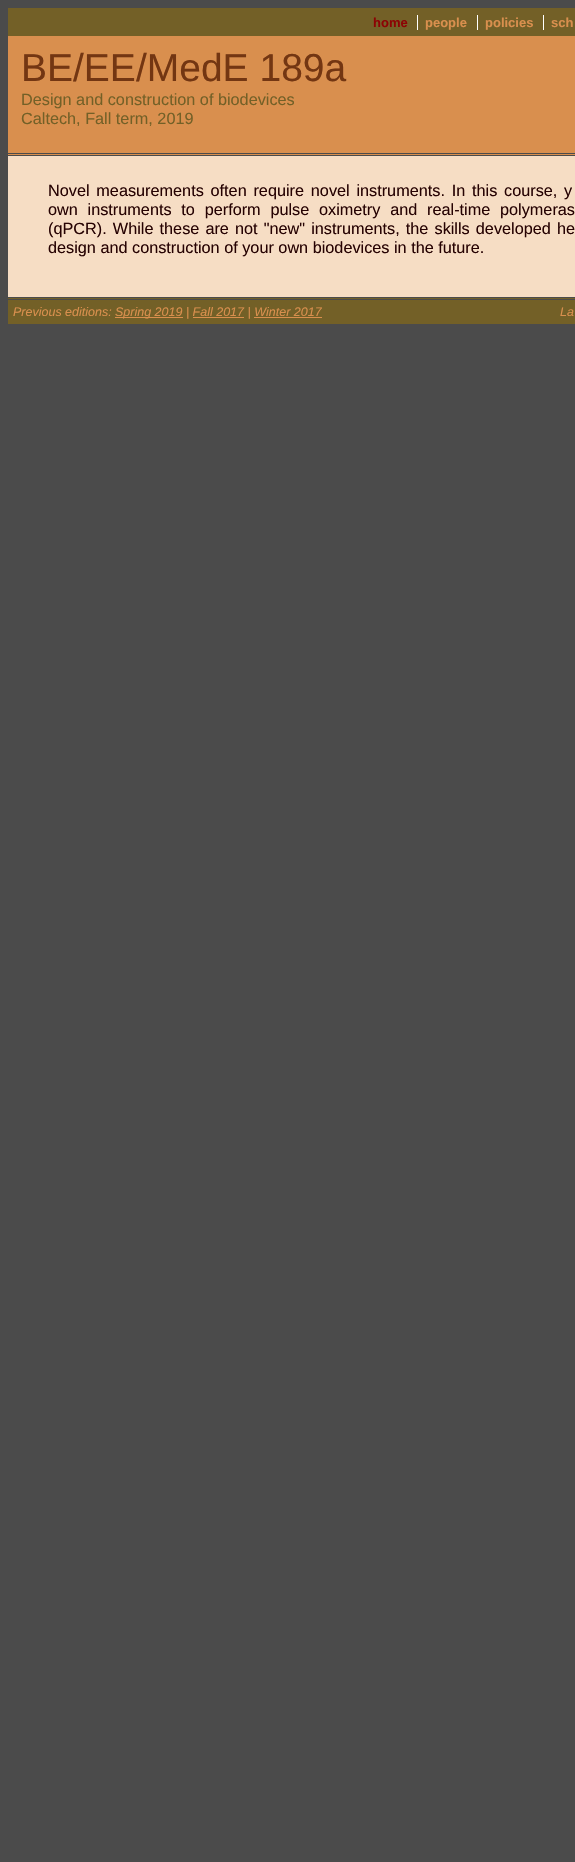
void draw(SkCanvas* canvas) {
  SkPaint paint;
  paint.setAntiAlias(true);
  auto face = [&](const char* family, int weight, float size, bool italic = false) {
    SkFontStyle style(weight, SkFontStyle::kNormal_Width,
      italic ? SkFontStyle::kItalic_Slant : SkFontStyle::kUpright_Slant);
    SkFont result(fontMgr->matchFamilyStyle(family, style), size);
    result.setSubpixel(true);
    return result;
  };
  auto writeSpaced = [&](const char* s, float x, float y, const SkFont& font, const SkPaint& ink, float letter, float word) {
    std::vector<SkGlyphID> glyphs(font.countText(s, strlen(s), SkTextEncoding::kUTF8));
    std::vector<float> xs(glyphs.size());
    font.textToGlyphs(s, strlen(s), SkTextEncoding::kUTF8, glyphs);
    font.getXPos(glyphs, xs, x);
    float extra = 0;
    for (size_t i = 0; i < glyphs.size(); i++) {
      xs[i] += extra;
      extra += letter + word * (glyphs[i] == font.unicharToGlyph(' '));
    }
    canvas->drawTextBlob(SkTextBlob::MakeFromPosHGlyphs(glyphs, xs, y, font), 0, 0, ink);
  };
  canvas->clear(0xff4b4b4b);
  {
    const struct { float x, y, w, h; SkColor color; } items[] = {
      {8, 156, 567, 141, 0xfff6ddc4},
      {8, 8, 567, 28, 0xff736027},
      {417, 15, 1, 15, 0xffffffff},
      {477, 15, 1, 15, 0xffffffff},
      {543, 15, 1, 15, 0xffffffff},
      {8, 36, 567, 119, 0xffd98f4e},
      {8, 153, 567, 1, 0xff4b4b4b},
      {8, 298, 567, 26, 0xff736027},
      {8, 299, 567, 1, 0xff4b4b4b},
      {115, 317, 68, 1, 0xffd98f4e},
      {193, 317, 51, 1, 0xffd98f4e},
      {254, 317, 68, 1, 0xffd98f4e},
    };
    for (auto [x, y, w, h, color] : items) {
      paint.setColor(color);
      canvas->drawRect(SkRect::MakeXYWH(x, y, w, h), paint);
    }
  }
  auto f0 = face("Liberation Sans", 700, 13);
  paint.setColor(0xff8c0404);
  canvas->drawString("home", 373, 27, f0, paint);
  paint.setColor(0xffd98f4e);
  {
    const struct { const char* s; float x, y; } items[] = {
      {"people", 425, 27},
      {"policies", 485, 27},
      {"sch", 551, 27},
    };
    for (auto [s, x, y] : items) {
      canvas->drawString(s, x, y, f0, paint);
    }
  }
  auto f1 = face("Liberation Sans", 400, 39);
  paint.setColor(0xff733612);
  canvas->drawString("BE/EE/MedE 189a", 21, 81, f1, paint);
  auto f2 = face("Liberation Sans", 400, 16.25f);
  paint.setColor(0xff736027);
  canvas->drawString("Design and construction of biodevices", 21, 105, f2, paint);
  canvas->drawString("Caltech, Fall term, 2019", 21, 124, f2, paint);
  paint.setColor(0xff260202);
  writeSpaced("Novel measurements often require novel instruments. In this course, y", 48, 196, f2, paint, 0, 2.25f);
  writeSpaced("own instruments to perform pulse oximetry and real-time polymeras", 48, 215, f2, paint, 0, 5.25f);
  writeSpaced("(qPCR). While these are not \"new\" instruments, the skills developed he", 48, 234, f2, paint, 0, 1.6f);
  canvas->drawString("design and construction of your own biodevices in the future.", 48, 253, f2, paint);
  auto f3 = face("Liberation Sans", 400, 12.5f, true);
  paint.setColor(0xffd98f4e);
  {
    const struct { const char* s; float x, y; } items[] = {
      {"Previous editions:", 13, 316},
      {"Spring 2019 | Fall 2017 | Winter 2017", 115, 316},
      {"La", 560, 316},
    };
    for (auto [s, x, y] : items) {
      canvas->drawString(s, x, y, f3, paint);
    }
  }
}
